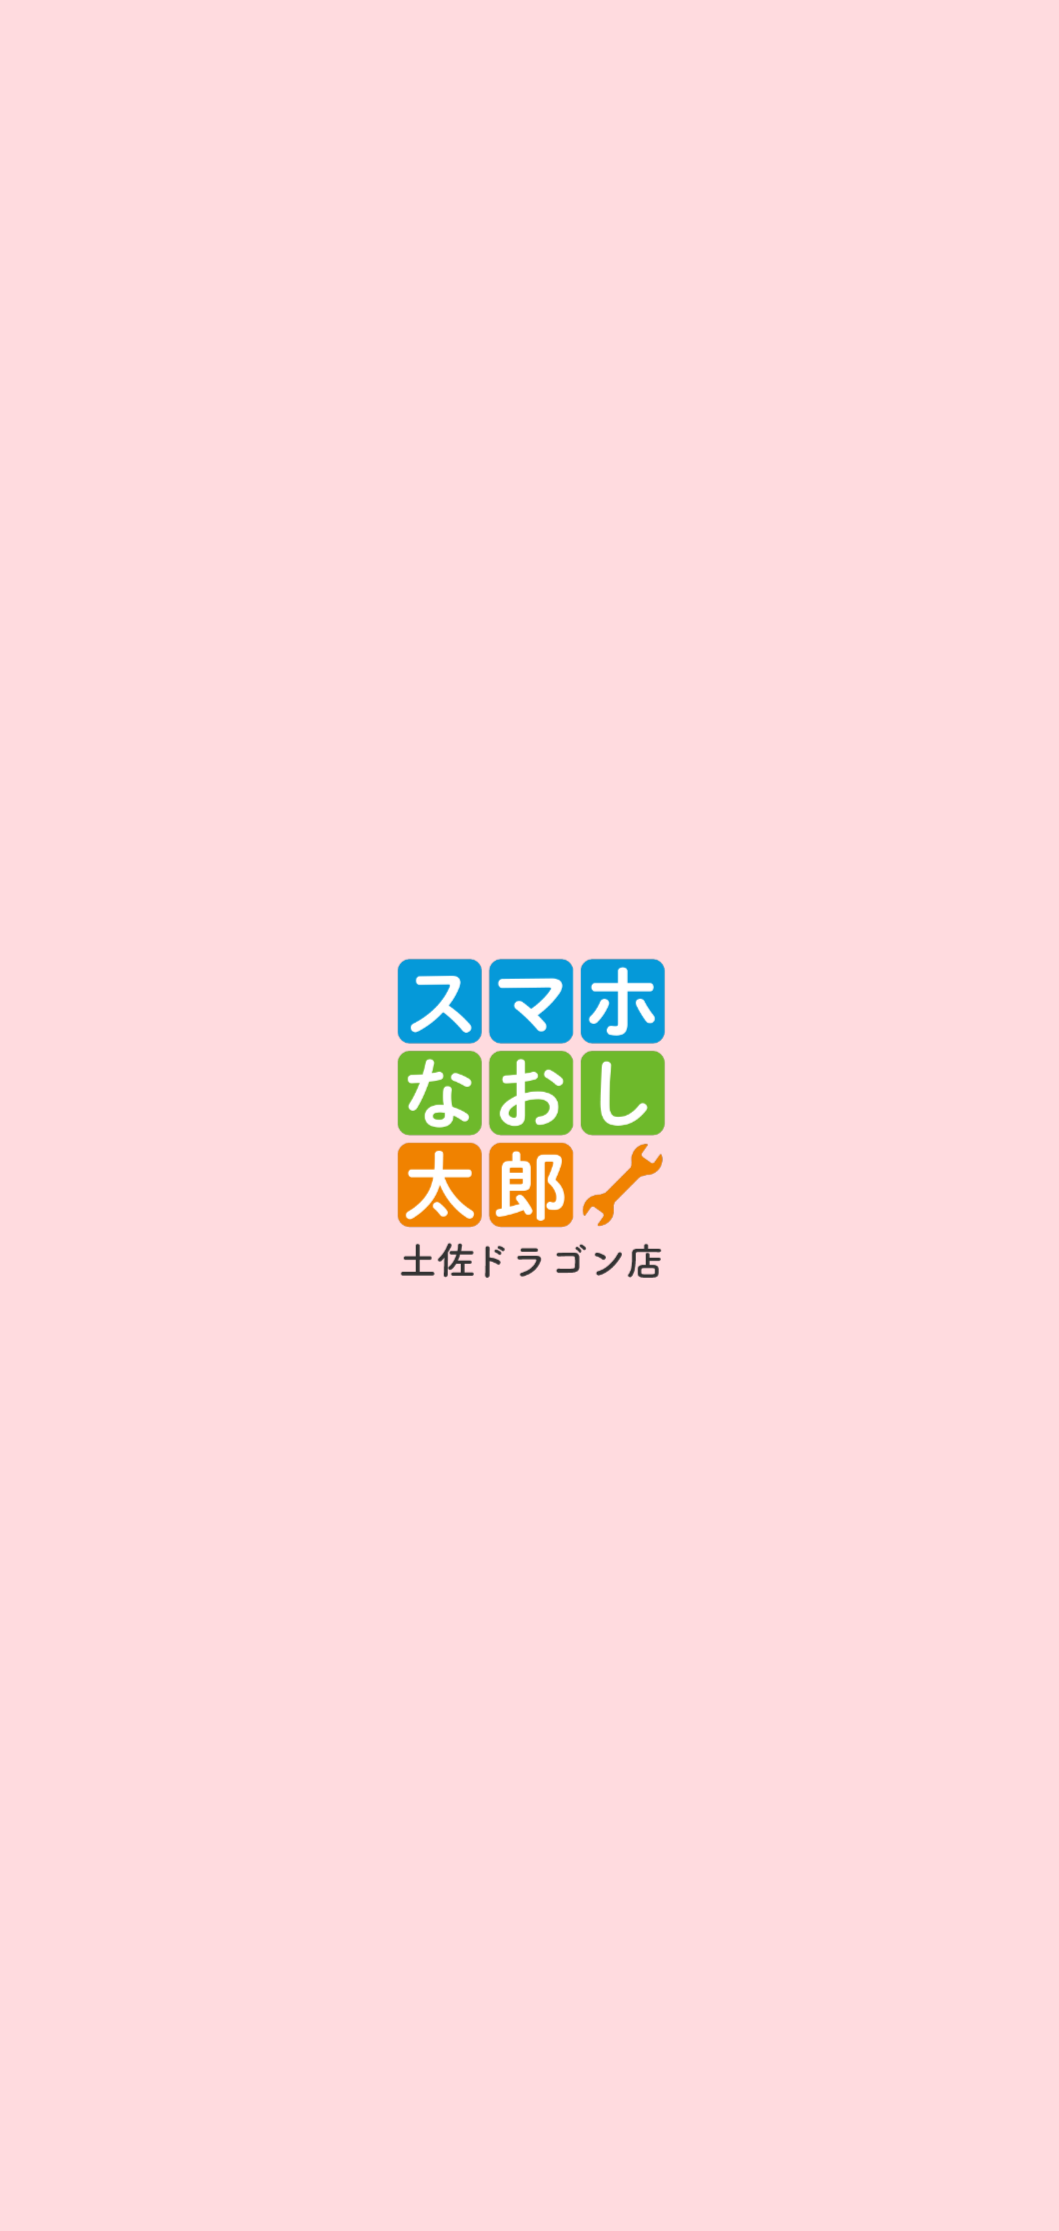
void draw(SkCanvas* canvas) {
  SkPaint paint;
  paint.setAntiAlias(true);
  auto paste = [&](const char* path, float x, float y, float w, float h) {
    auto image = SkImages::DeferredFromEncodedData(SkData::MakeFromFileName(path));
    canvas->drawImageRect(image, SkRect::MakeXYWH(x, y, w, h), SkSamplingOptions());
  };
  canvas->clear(0xffffdbdf);
  paste("img/1.png", 397, 958, 269, 320);
}
